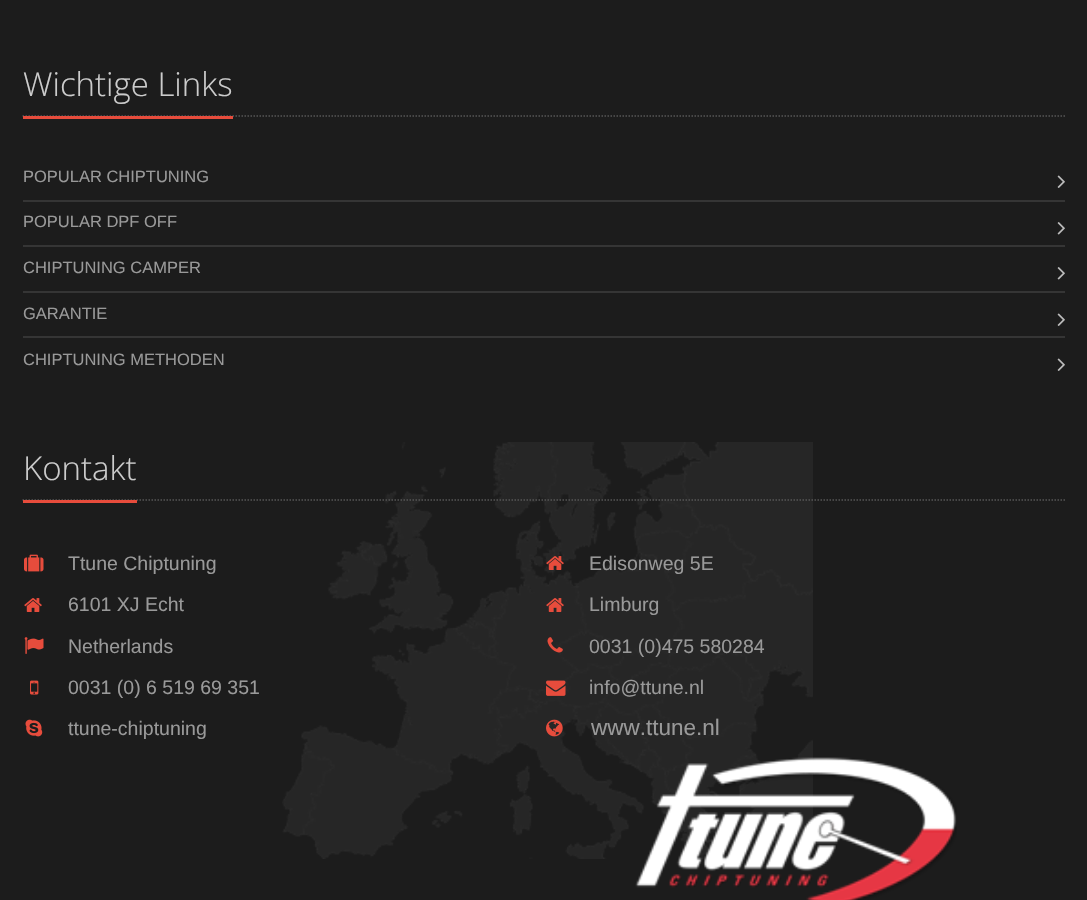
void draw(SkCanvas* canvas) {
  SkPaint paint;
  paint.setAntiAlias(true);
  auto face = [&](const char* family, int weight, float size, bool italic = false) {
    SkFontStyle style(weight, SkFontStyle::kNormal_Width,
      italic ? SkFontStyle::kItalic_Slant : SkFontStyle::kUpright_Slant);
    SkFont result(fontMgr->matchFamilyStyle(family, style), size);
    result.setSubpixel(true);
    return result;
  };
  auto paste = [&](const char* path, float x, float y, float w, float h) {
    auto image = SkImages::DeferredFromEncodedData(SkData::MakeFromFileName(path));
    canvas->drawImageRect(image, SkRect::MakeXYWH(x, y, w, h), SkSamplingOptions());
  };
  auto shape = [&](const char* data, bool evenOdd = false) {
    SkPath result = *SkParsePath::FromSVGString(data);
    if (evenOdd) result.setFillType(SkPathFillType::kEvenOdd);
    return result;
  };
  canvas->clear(0xff1c1c1c);
  paint.setStroke(true);
  paint.setStrokeWidth(1.5f);
  paint.setColor(0xff555555);
  paint.setPathEffect(SkDashPathEffect::Make({{1.5f, 1.5f}}, 0));
  canvas->drawPath(shape("M22.5 116H1065"), paint);
  paint.setPathEffect(nullptr);
  paint.setStroke(false);
  paint.setColor(0xffe74c3c);
  canvas->drawRect(SkRect::MakeXYWH(23, 116, 210, 3), paint);
  paste("img/1.png", 1057, 175, 8, 13);
  paint.setColor(0xff353535);
  canvas->drawRect(SkRect::MakeXYWH(23, 200, 1042, 2), paint);
  paste("img/2.png", 1057, 222, 8, 13);
  canvas->drawRect(SkRect::MakeXYWH(23, 245, 1042, 2), paint);
  paste("img/2.png", 1057, 267, 8, 13);
  canvas->drawRect(SkRect::MakeXYWH(23, 291, 1042, 2), paint);
  paste("img/1.png", 1057, 313, 8, 13);
  canvas->drawRect(SkRect::MakeXYWH(23, 336, 1042, 2), paint);
  paste("img/1.png", 1057, 358, 8, 13);
  paste("img/3.png", 282, 442, 531, 417);
  paint.setStroke(true);
  paint.setColor(0xff555555);
  paint.setPathEffect(SkDashPathEffect::Make({{1.5f, 1.5f}}, 0));
  canvas->drawPath(shape("M22.5 500H1065"), paint);
  paint.setPathEffect(nullptr);
  paint.setStroke(false);
  paint.setColor(0xffe74c3c);
  canvas->drawRect(SkRect::MakeXYWH(23, 500, 114, 3), paint);
  paste("img/4.png", 24, 554, 20, 18);
  paste("img/5.png", 546, 556, 18, 14);
  paste("img/6.png", 24, 598, 18, 14);
  paste("img/7.png", 546, 598, 18, 14);
  paste("img/8.png", 24, 637, 20, 17);
  paste("img/9.png", 547, 637, 16, 16);
  paste("img/10.png", 30, 680, 9, 15);
  paste("img/11.png", 546, 680, 20, 16);
  paste("img/12.png", 25, 719, 18, 18);
  paste("img/13.png", 546, 719, 17, 18);
  paste("img/14.png", 635, 757, 322, 143);
  auto f0 = face("Open Sans", 300, 33);
  paint.setColor(0xffcccccc);
  canvas->drawString("Wichtige Links", 23, 96, f0, paint);
  auto f1 = face("Liberation Sans", 400, 16.5f);
  paint.setColor(0xff999999);
  {
    const struct { const char* s; float x, y; } items[] = {
      {"POPULAR CHIPTUNING", 23, 182},
      {"POPULAR DPF OFF", 23, 227},
      {"CHIPTUNING CAMPER", 23, 273},
      {"GARANTIE", 23, 319},
      {"CHIPTUNING METHODEN", 23, 365},
    };
    for (auto [s, x, y] : items) {
      canvas->drawString(s, x, y, f1, paint);
    }
  }
  paint.setColor(0xffcccccc);
  canvas->drawString("Kontakt", 23, 480, f0, paint);
  auto f2 = face("Liberation Sans", 400, 19.5f);
  paint.setColor(0xff999999);
  {
    const struct { const char* s; float x, y; } items[] = {
      {"Ttune Chiptuning", 68, 570},
      {"Edisonweg 5E", 589, 570},
      {"6101 XJ Echt", 68, 611},
      {"Limburg", 589, 611},
      {"Netherlands", 68, 653},
      {"0031 (0)475 580284", 589, 653},
      {"0031 (0) 6 519 69 351", 68, 694},
      {"info@ttune.nl", 589, 694},
      {"ttune-chiptuning", 68, 735},
    };
    for (auto [s, x, y] : items) {
      canvas->drawString(s, x, y, f2, paint);
    }
  }
  auto f3 = face("Liberation Sans", 400, 22.5f);
  canvas->drawString("www.ttune.nl", 591, 735, f3, paint);
}
